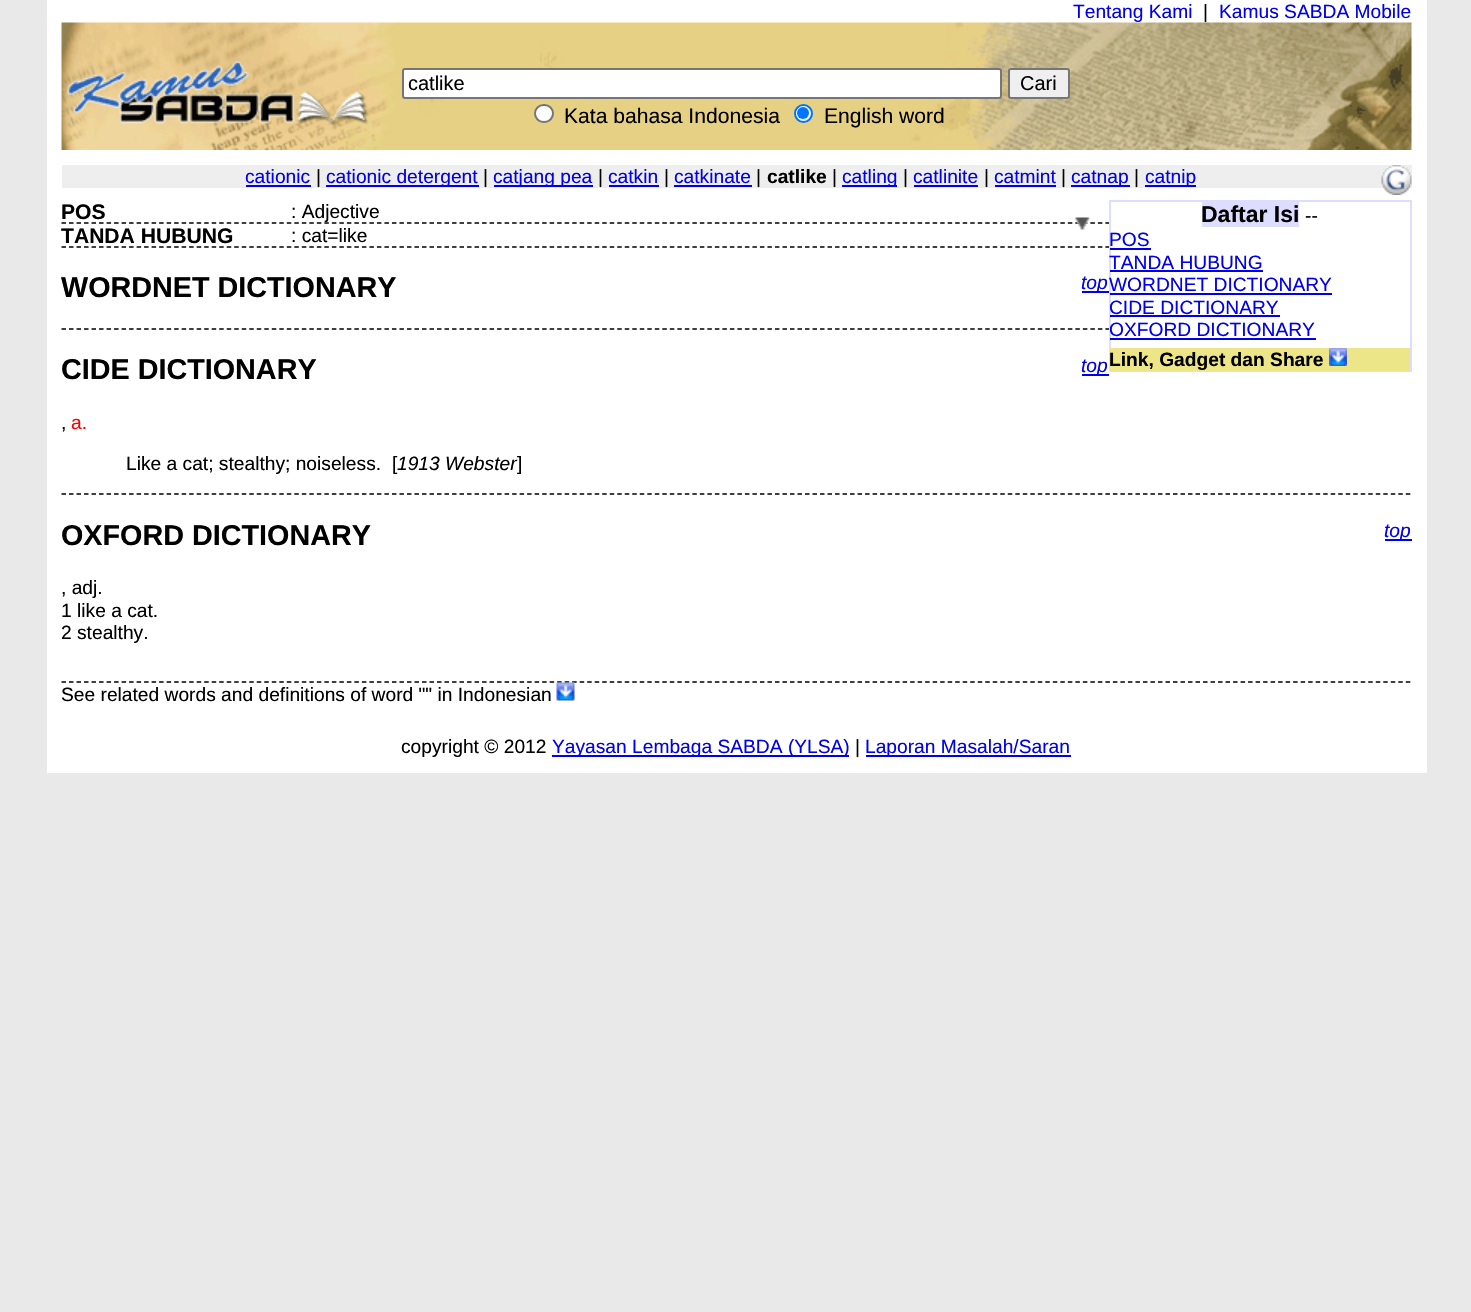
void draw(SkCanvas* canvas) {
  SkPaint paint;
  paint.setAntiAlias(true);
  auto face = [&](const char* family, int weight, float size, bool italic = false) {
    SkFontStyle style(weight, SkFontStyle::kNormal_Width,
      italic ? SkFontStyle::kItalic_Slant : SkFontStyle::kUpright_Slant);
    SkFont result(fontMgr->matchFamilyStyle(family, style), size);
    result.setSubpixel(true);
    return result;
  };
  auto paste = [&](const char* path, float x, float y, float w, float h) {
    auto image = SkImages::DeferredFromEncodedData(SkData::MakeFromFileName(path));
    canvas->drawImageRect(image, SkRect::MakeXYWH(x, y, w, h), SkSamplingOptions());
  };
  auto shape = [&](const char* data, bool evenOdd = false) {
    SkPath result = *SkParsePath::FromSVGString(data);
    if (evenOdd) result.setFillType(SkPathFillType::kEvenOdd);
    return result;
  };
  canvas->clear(0xffe9e9e9);
  paint.setColor(0xffffffff);
  canvas->drawRect(SkRect::MakeXYWH(47, 0, 1380, 773), paint);
  paste("img/1.png", 61, 22, 1351, 128);
  canvas->drawRoundRect(SkRect::MakeXYWH(403, 69, 598, 29), 2, 2, paint);
  paint.setStroke(true);
  paint.setStrokeWidth(2);
  paint.setColor(0xff767676);
  canvas->drawRoundRect(SkRect::MakeXYWH(403, 69, 598, 29), 2, 2, paint);
  paint.setStroke(false);
  paint.setColor(0xffefefef);
  canvas->drawRoundRect(SkRect::MakeXYWH(1009, 69, 60, 29), 2, 2, paint);
  paint.setStroke(true);
  paint.setColor(0xff767676);
  canvas->drawRoundRect(SkRect::MakeXYWH(1009, 69, 60, 29), 2, 2, paint);
  paint.setStroke(false);
  paint.setColor(0xffffffff);
  canvas->drawRoundRect(SkRect::MakeXYWH(535, 105, 18, 17), 8.5f, 8.5f, paint);
  paint.setStroke(true);
  paint.setColor(0xff767676);
  canvas->drawRoundRect(SkRect::MakeXYWH(535, 105, 18, 17), 8.5f, 8.5f, paint);
  paint.setStroke(false);
  paint.setColor(0xffffffff);
  canvas->drawCircle(803.5f, 113.5f, 8.5f, paint);
  paint.setStroke(true);
  paint.setColor(0xff0075ff);
  canvas->drawCircle(803.5f, 113.5f, 8.5f, paint);
  paint.setStroke(false);
  canvas->drawCircle(803, 113, 6, paint);
  {
    const struct { float x, y, w, h; SkColor color; } items[] = {
      {62, 165, 1350, 23, 0xffeeeeee},
      {246, 185, 65, 2, 0xff0000ee},
      {326, 185, 153, 2, 0xff0000ee},
      {494, 185, 99, 2, 0xff0000ee},
      {609, 185, 50, 2, 0xff0000ee},
      {674, 185, 78, 2, 0xff0000ee},
      {842, 185, 55, 2, 0xff0000ee},
      {914, 185, 64, 2, 0xff0000ee},
      {995, 185, 61, 2, 0xff0000ee},
      {1071, 185, 59, 2, 0xff0000ee},
      {1145, 185, 51, 2, 0xff0000ee},
    };
    for (auto [x, y, w, h, color] : items) {
      paint.setColor(color);
      canvas->drawRect(SkRect::MakeXYWH(x, y, w, h), paint);
    }
  }
  paste("img/2.png", 1381, 165, 31, 30);
  paint.setStroke(true);
  paint.setStrokeWidth(1.5f);
  paint.setColor(0xff000000);
  paint.setPathEffect(SkDashPathEffect::Make({{4.5f, 3.01f}}, 0));
  canvas->drawPath(shape("M61.5 223H1411.5"), paint);
  paint.setPathEffect(nullptr);
  paint.setPathEffect(SkDashPathEffect::Make({{4.5f, 3.01f}}, 0));
  canvas->drawPath(shape("M61.5 247H1411.5"), paint);
  paint.setPathEffect(nullptr);
  paint.setPathEffect(SkDashPathEffect::Make({{4.5f, 3.01f}}, 0));
  canvas->drawPath(shape("M61.5 329H1411.5"), paint);
  paint.setPathEffect(nullptr);
  paint.setStroke(false);
  paint.setColor(0xff0000ee);
  canvas->drawRect(SkRect::MakeXYWH(1082, 291, 27, 2), paint);
  paint.setStroke(true);
  paint.setColor(0xff000000);
  paint.setPathEffect(SkDashPathEffect::Make({{4.5f, 3.01f}}, 0));
  canvas->drawPath(shape("M61.5 494H1411.5"), paint);
  paint.setPathEffect(nullptr);
  paint.setStroke(false);
  paint.setColor(0xff0000ee);
  canvas->drawRect(SkRect::MakeXYWH(1082, 374, 27, 2), paint);
  paint.setStroke(true);
  paint.setColor(0xff000000);
  paint.setPathEffect(SkDashPathEffect::Make({{4.5f, 3.01f}}, 0));
  canvas->drawPath(shape("M61.5 682H1411.5"), paint);
  paint.setPathEffect(nullptr);
  paint.setStroke(false);
  paint.setColor(0xff0000ee);
  canvas->drawRect(SkRect::MakeXYWH(1385, 539, 27, 2), paint);
  paste("img/3.png", 556, 682, 19, 19);
  paste("img/4.png", 1075, 217, 15, 13);
  paint.setColor(0xffffffff);
  canvas->drawRect(SkRect::MakeXYWH(1112, 222, 298, 108), paint);
  paint.setStroke(true);
  paint.setStrokeWidth(2);
  paint.setColor(0xffddddff);
  canvas->drawRect(SkRect::MakeXYWH(1110, 201, 301, 170), paint);
  paint.setStroke(false);
  {
    const struct { float x, y, w, h; SkColor color; } items[] = {
      {1202, 202, 97, 25, 0xffddddff},
      {1110, 248, 41, 2, 0xff0000ee},
      {1110, 270, 153, 2, 0xff0000ee},
      {1110, 293, 222, 2, 0xff0000ee},
      {1110, 315, 170, 2, 0xff0000ee},
      {1110, 338, 206, 2, 0xff0000ee},
      {1110, 348, 300, 23, 0xffede689},
    };
    for (auto [x, y, w, h, color] : items) {
      paint.setColor(color);
      canvas->drawRect(SkRect::MakeXYWH(x, y, w, h), paint);
    }
  }
  paste("img/5.png", 1329, 348, 18, 18);
  paint.setColor(0xff0000ee);
  canvas->drawRect(SkRect::MakeXYWH(552, 755, 297, 2), paint);
  canvas->drawRect(SkRect::MakeXYWH(866, 755, 205, 2), paint);
  auto f0 = face("Liberation Sans", 400, 19.2f);
  canvas->drawString("Tentang Kami", 1073, 18, f0, paint);
  paint.setColor(0xff000000);
  canvas->drawString("|", 1203, 18, f0, paint);
  paint.setColor(0xff0000ee);
  canvas->drawString("Kamus SABDA Mobile", 1219, 18, f0, paint);
  auto f1 = face("Liberation Sans", 400, 20);
  paint.setColor(0xff000000);
  canvas->drawString("catlike", 408, 90, f1, paint);
  canvas->drawString("Cari", 1020, 90, f1, paint);
  auto f2 = face("Liberation Sans", 400, 21.1f);
  canvas->drawString("Kata bahasa Indonesia", 564, 123, f2, paint);
  canvas->drawString("English word", 824, 123, f2, paint);
  paint.setColor(0xff0000ee);
  canvas->drawString("cationic", 245, 183, f0, paint);
  paint.setColor(0xff000000);
  canvas->drawString("|", 316, 183, f0, paint);
  paint.setColor(0xff0000ee);
  canvas->drawString("cationic detergent", 326, 183, f0, paint);
  paint.setColor(0xff000000);
  canvas->drawString("|", 483, 183, f0, paint);
  paint.setColor(0xff0000ee);
  canvas->drawString("catjang pea", 493, 183, f0, paint);
  paint.setColor(0xff000000);
  canvas->drawString("|", 598, 183, f0, paint);
  paint.setColor(0xff0000ee);
  canvas->drawString("catkin", 608, 183, f0, paint);
  paint.setColor(0xff000000);
  canvas->drawString("|", 664, 183, f0, paint);
  paint.setColor(0xff0000ee);
  canvas->drawString("catkinate", 674, 183, f0, paint);
  paint.setColor(0xff000000);
  canvas->drawString("|", 756, 183, f0, paint);
  auto f3 = face("Liberation Sans", 700, 19.2f);
  canvas->drawString("catlike", 767, 183, f3, paint);
  canvas->drawString("|", 832, 183, f0, paint);
  paint.setColor(0xff0000ee);
  canvas->drawString("catling", 842, 183, f0, paint);
  paint.setColor(0xff000000);
  canvas->drawString("|", 903, 183, f0, paint);
  paint.setColor(0xff0000ee);
  canvas->drawString("catlinite", 913, 183, f0, paint);
  paint.setColor(0xff000000);
  canvas->drawString("|", 984, 183, f0, paint);
  paint.setColor(0xff0000ee);
  canvas->drawString("catmint", 994, 183, f0, paint);
  paint.setColor(0xff000000);
  canvas->drawString("|", 1061, 183, f0, paint);
  paint.setColor(0xff0000ee);
  canvas->drawString("catnap", 1071, 183, f0, paint);
  paint.setColor(0xff000000);
  canvas->drawString("|", 1134, 183, f0, paint);
  paint.setColor(0xff0000ee);
  canvas->drawString("catnip", 1145, 183, f0, paint);
  auto f4 = face("Liberation Sans", 700, 21.1f);
  paint.setColor(0xff000000);
  canvas->drawString("POS", 61, 219, f4, paint);
  canvas->drawString(": Adjective", 291, 218, f0, paint);
  canvas->drawString("TANDA HUBUNG", 61, 243, f4, paint);
  canvas->drawString(": cat=like", 291, 242, f0, paint);
  auto f5 = face("Liberation Sans", 700, 28.75f);
  canvas->drawString("WORDNET DICTIONARY", 61, 297, f5, paint);
  auto f6 = face("Liberation Sans", 400, 19.2f, true);
  paint.setColor(0xff0000ee);
  canvas->drawString("top", 1081, 289, f6, paint);
  paint.setColor(0xff000000);
  canvas->drawString("CIDE DICTIONARY", 61, 379, f5, paint);
  paint.setColor(0xff0000ee);
  canvas->drawString("top", 1081, 372, f6, paint);
  paint.setColor(0xff000000);
  canvas->drawString(",", 61, 429, f0, paint);
  paint.setColor(0xffff0000);
  canvas->drawString("a.", 71, 429, f0, paint);
  paint.setColor(0xff000000);
  canvas->drawString("Like a cat; stealthy; noiseless.", 126, 470, f0, paint);
  canvas->drawString("[", 392, 470, f0, paint);
  canvas->drawString("1913 Webster", 397, 470, f6, paint);
  canvas->drawString("]", 517, 470, f0, paint);
  canvas->drawString("OXFORD DICTIONARY", 61, 545, f5, paint);
  paint.setColor(0xff0000ee);
  canvas->drawString("top", 1384, 537, f6, paint);
  paint.setColor(0xff000000);
  {
    const struct { const char* s; float x, y; } items[] = {
      {", adj.", 61, 594},
      {"1 like a cat.", 61, 617},
      {"2 stealthy.", 61, 639},
      {"See related words and definitions of word \"\" in Indonesian", 61, 701},
    };
    for (auto [s, x, y] : items) {
      canvas->drawString(s, x, y, f0, paint);
    }
  }
  auto f7 = face("Liberation Sans", 700, 23);
  canvas->drawString("Daftar Isi", 1201, 222, f7, paint);
  canvas->drawString("--", 1305, 222, f0, paint);
  paint.setColor(0xff0000ee);
  {
    const struct { const char* s; float x, y; } items[] = {
      {"POS", 1109, 246},
      {"TANDA HUBUNG", 1109, 269},
      {"WORDNET DICTIONARY", 1109, 291},
      {"CIDE DICTIONARY", 1109, 314},
      {"OXFORD DICTIONARY", 1109, 336},
    };
    for (auto [s, x, y] : items) {
      canvas->drawString(s, x, y, f0, paint);
    }
  }
  paint.setColor(0xff000000);
  canvas->drawString("Link, Gadget dan Share", 1109, 366, f3, paint);
  canvas->drawString("copyright © 2012", 401, 753, f0, paint);
  paint.setColor(0xff0000ee);
  canvas->drawString("Yayasan Lembaga SABDA (YLSA)", 552, 753, f0, paint);
  paint.setColor(0xff000000);
  canvas->drawString("|", 855, 753, f0, paint);
  paint.setColor(0xff0000ee);
  canvas->drawString("Laporan Masalah/Saran", 865, 753, f0, paint);
}
